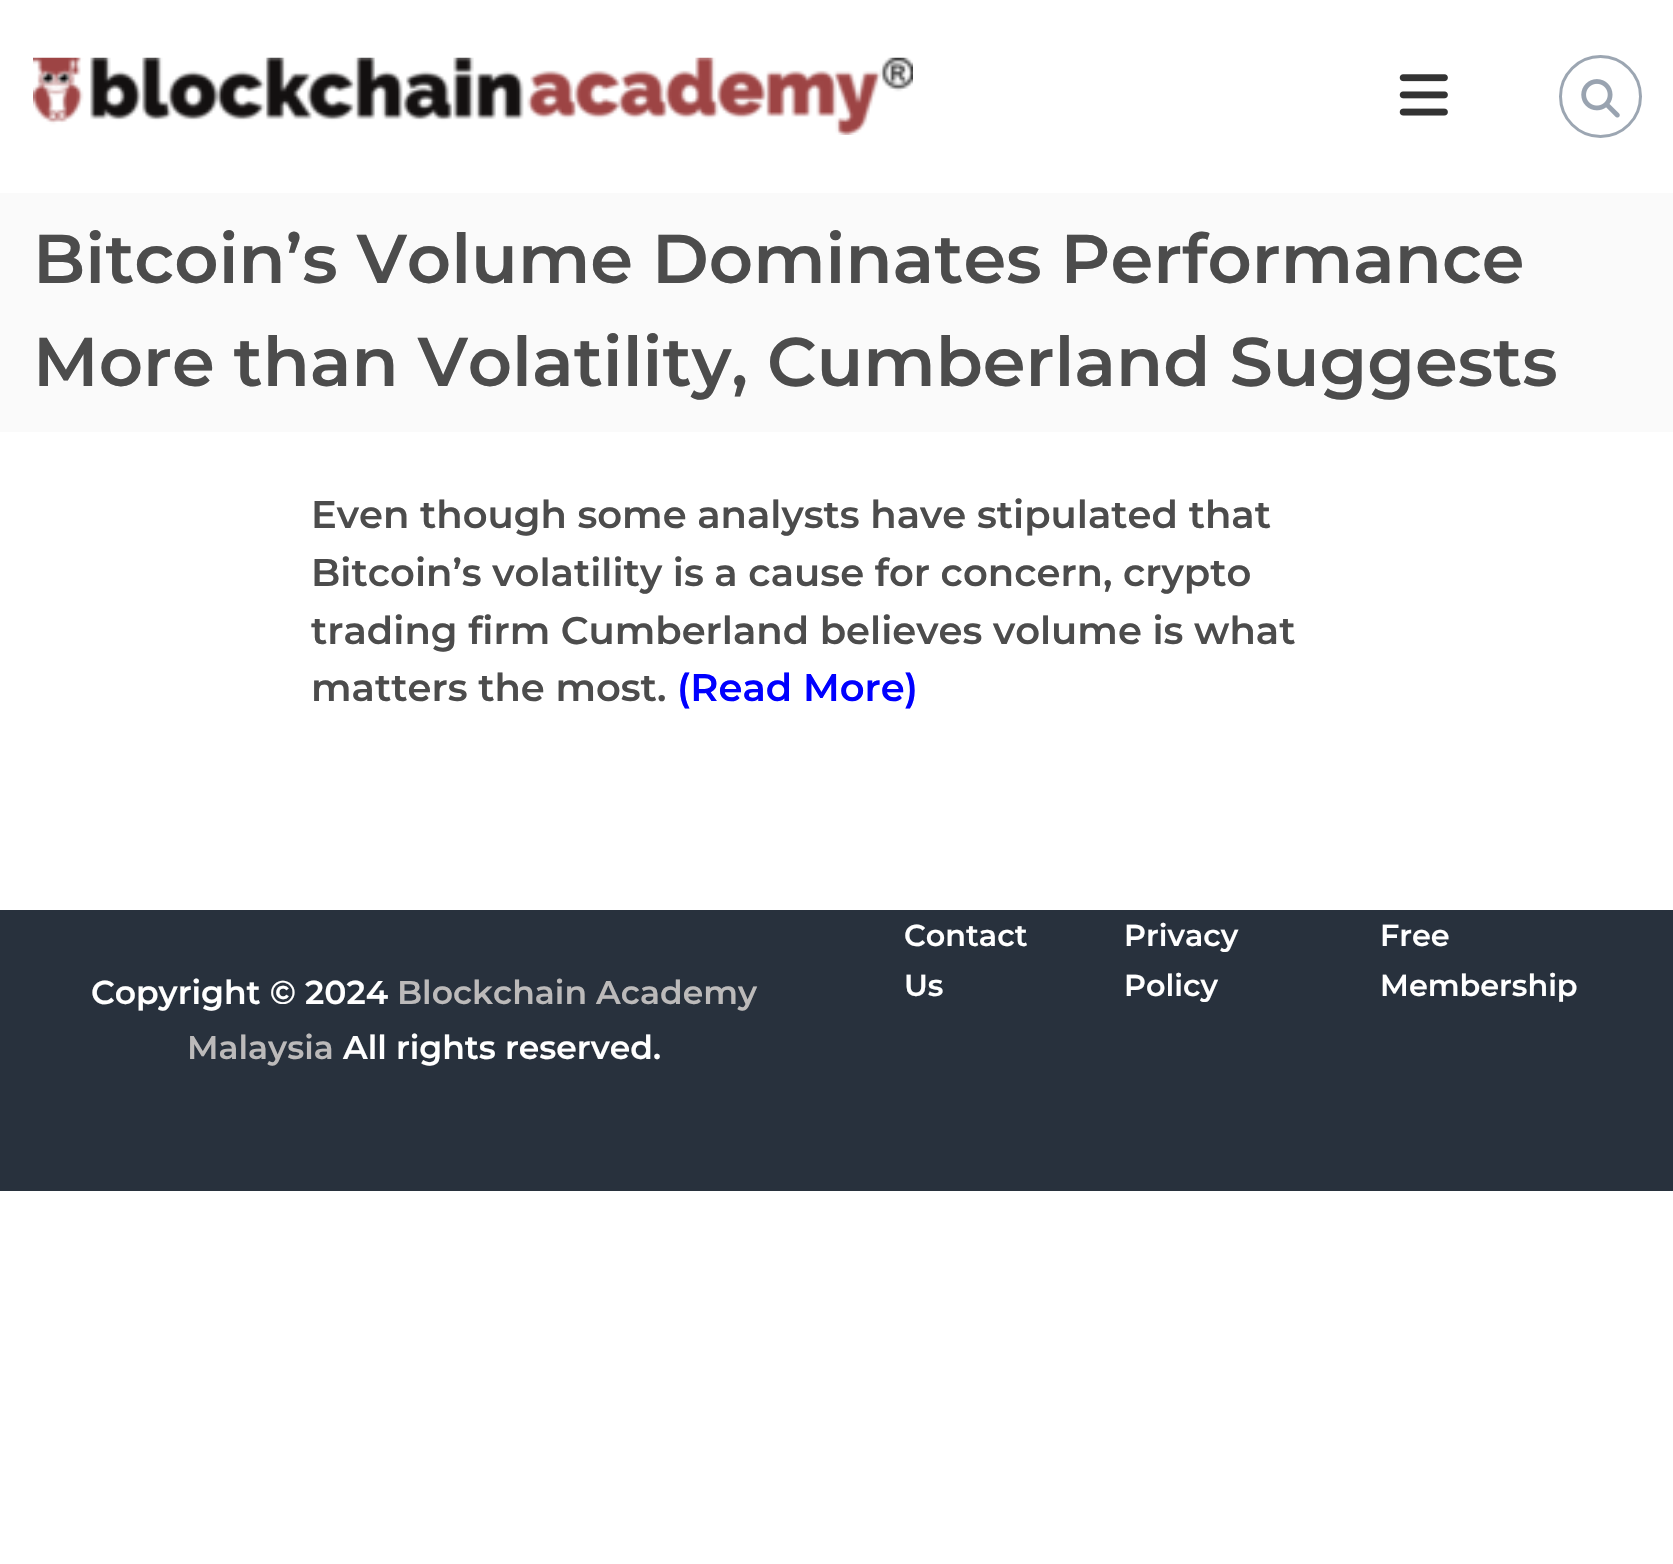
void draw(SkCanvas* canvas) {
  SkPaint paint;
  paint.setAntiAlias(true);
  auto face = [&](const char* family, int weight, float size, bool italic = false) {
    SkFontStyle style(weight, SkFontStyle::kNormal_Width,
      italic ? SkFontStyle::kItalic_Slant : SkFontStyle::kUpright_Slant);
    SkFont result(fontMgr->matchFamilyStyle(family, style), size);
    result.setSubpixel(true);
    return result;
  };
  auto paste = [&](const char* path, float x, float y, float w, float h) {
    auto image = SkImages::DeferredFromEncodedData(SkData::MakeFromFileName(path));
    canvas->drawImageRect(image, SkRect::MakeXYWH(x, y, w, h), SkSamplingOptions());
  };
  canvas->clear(0xffffffff);
  paste("img/1.png", 33, 57, 880, 78);
  paste("img/2.png", 1399, 74, 49, 42);
  paint.setStroke(true);
  paint.setStrokeWidth(3);
  paint.setColor(0xff9ca6b2);
  canvas->drawCircle(1600.5f, 96.5f, 40, paint);
  paste("img/3.png", 1581, 79, 39, 39);
  paint.setStroke(false);
  paint.setColor(0xfffafafa);
  canvas->drawRect(SkRect::MakeXYWH(0, 193, 1673, 239), paint);
  paint.setColor(0xff28313d);
  canvas->drawRect(SkRect::MakeXYWH(0, 910, 1673, 281), paint);
  auto f0 = face("Montserrat", 600, 68.75f);
  paint.setColor(0xff4c4c4c);
  canvas->drawString("Bitcoin’s Volume Dominates Performance", 33, 283, f0, paint);
  canvas->drawString("More than Volatility, Cumberland Suggests", 33, 386, f0, paint);
  auto f1 = face("Montserrat", 600, 38.5f);
  {
    const struct { const char* s; float x, y; } items[] = {
      {"Even though some analysts have stipulated that", 311, 528},
      {"Bitcoin’s volatility is a cause for concern, crypto", 311, 586},
      {"trading firm Cumberland believes volume is what", 311, 644},
      {"matters the most.", 311, 701},
    };
    for (auto [s, x, y] : items) {
      canvas->drawString(s, x, y, f1, paint);
    }
  }
  paint.setColor(0xff0000ff);
  canvas->drawString("(Read More)", 677, 701, f1, paint);
  auto f2 = face("Montserrat", 600, 30.25f);
  paint.setColor(0xffffffff);
  {
    const struct { const char* s; float x, y; } items[] = {
      {"Contact", 904, 946},
      {"Us", 904, 996},
      {"Privacy", 1124, 946},
      {"Policy", 1124, 996},
      {"Free", 1380, 946},
      {"Membership", 1380, 996},
    };
    for (auto [s, x, y] : items) {
      canvas->drawString(s, x, y, f2, paint);
    }
  }
  auto f3 = face("Montserrat", 600, 33);
  canvas->drawString("Copyright © 2024", 91, 1004, f3, paint);
  paint.setColor(0xffbcbaba);
  canvas->drawString("Blockchain Academy", 397, 1004, f3, paint);
  canvas->drawString("Malaysia", 187, 1059, f3, paint);
  paint.setColor(0xffffffff);
  canvas->drawString("All rights reserved.", 343, 1059, f3, paint);
}
